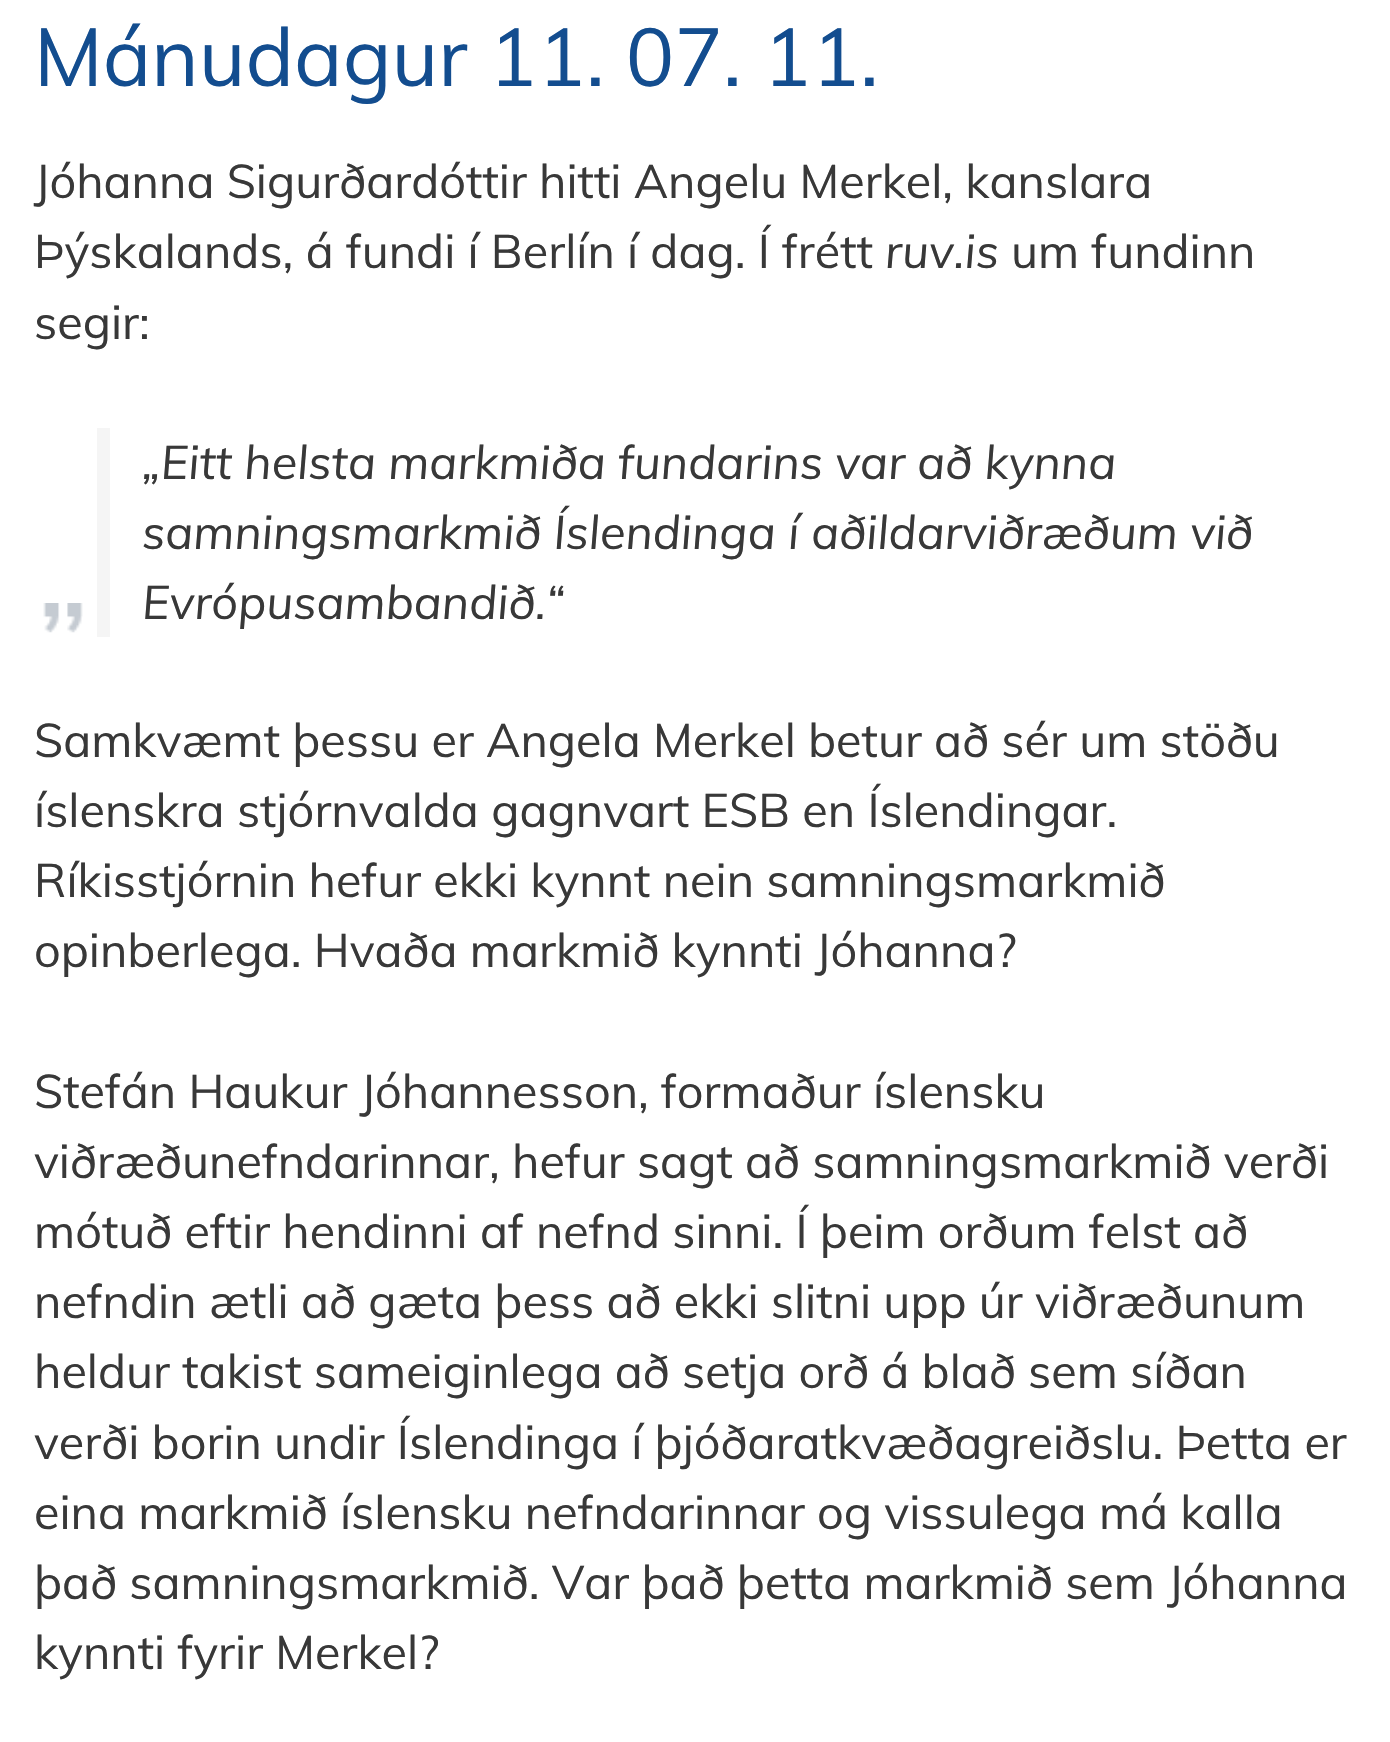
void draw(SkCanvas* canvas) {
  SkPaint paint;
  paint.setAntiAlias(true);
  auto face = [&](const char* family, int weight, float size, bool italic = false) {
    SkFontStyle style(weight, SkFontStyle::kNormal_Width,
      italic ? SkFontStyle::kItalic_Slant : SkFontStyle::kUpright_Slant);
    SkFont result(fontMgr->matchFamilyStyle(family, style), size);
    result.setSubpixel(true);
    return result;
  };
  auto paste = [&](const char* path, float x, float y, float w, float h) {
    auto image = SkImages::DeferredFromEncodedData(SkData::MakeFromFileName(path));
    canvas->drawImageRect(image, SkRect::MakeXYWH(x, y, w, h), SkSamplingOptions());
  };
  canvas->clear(0xffffffff);
  paint.setColor(0xfff5f5f5);
  canvas->drawRect(SkRect::MakeXYWH(97, 428, 13, 209), paint);
  paste("img/1.png", 43, 603, 40, 30);
  auto f0 = face("Muli", 400, 81);
  paint.setColor(0xff134d8f);
  canvas->drawString("Mánudagur 11. 07. 11.", 34, 86, f0, paint);
  auto f1 = face("Muli", 400, 46.8f);
  paint.setColor(0xff383838);
  canvas->drawString("Jóhanna Sigurðardóttir hitti Angelu Merkel, kanslara", 34, 198, f1, paint);
  canvas->drawString("Þýskalands, á fundi í Berlín í dag. Í frétt", 34, 268, f1, paint);
  auto f2 = face("Muli", 400, 46.8f, true);
  canvas->drawString("ruv.is", 885, 268, f2, paint);
  canvas->drawString("um fundinn", 1011, 268, f1, paint);
  canvas->drawString("segir:", 34, 339, f1, paint);
  {
    const struct { const char* s; float x, y; } items[] = {
      {"„Eitt helsta markmiða fundarins var að kynna", 142, 479},
      {"samningsmarkmið Íslendinga í aðildarviðræðum við", 142, 549},
      {"Evrópusambandið.“", 142, 619},
    };
    for (auto [s, x, y] : items) {
      canvas->drawString(s, x, y, f2, paint);
    }
  }
  {
    const struct { const char* s; float x, y; } items[] = {
      {"Samkvæmt þessu er Angela Merkel betur að sér um stöðu", 34, 757},
      {"íslenskra stjórnvalda gagnvart ESB en Íslendingar.", 34, 827},
      {"Ríkisstjórnin hefur ekki kynnt nein samningsmarkmið", 34, 897},
      {"opinberlega. Hvaða markmið kynnti Jóhanna?", 34, 967},
      {"Stefán Haukur Jóhannesson, formaður íslensku", 34, 1108},
      {"viðræðunefndarinnar, hefur sagt að samningsmarkmið verði", 34, 1178},
      {"mótuð eftir hendinni af nefnd sinni. Í þeim orðum felst að", 34, 1248},
      {"nefndin ætli að gæta þess að ekki slitni upp úr viðræðunum", 34, 1318},
      {"heldur takist sameiginlega að setja orð á blað sem síðan", 34, 1388},
      {"verði borin undir Íslendinga í þjóðaratkvæðagreiðslu. Þetta er", 34, 1459},
      {"eina markmið íslensku nefndarinnar og vissulega má kalla", 34, 1529},
      {"það samningsmarkmið. Var það þetta markmið sem Jóhanna", 34, 1599},
      {"kynnti fyrir Merkel?", 34, 1669},
    };
    for (auto [s, x, y] : items) {
      canvas->drawString(s, x, y, f1, paint);
    }
  }
}
